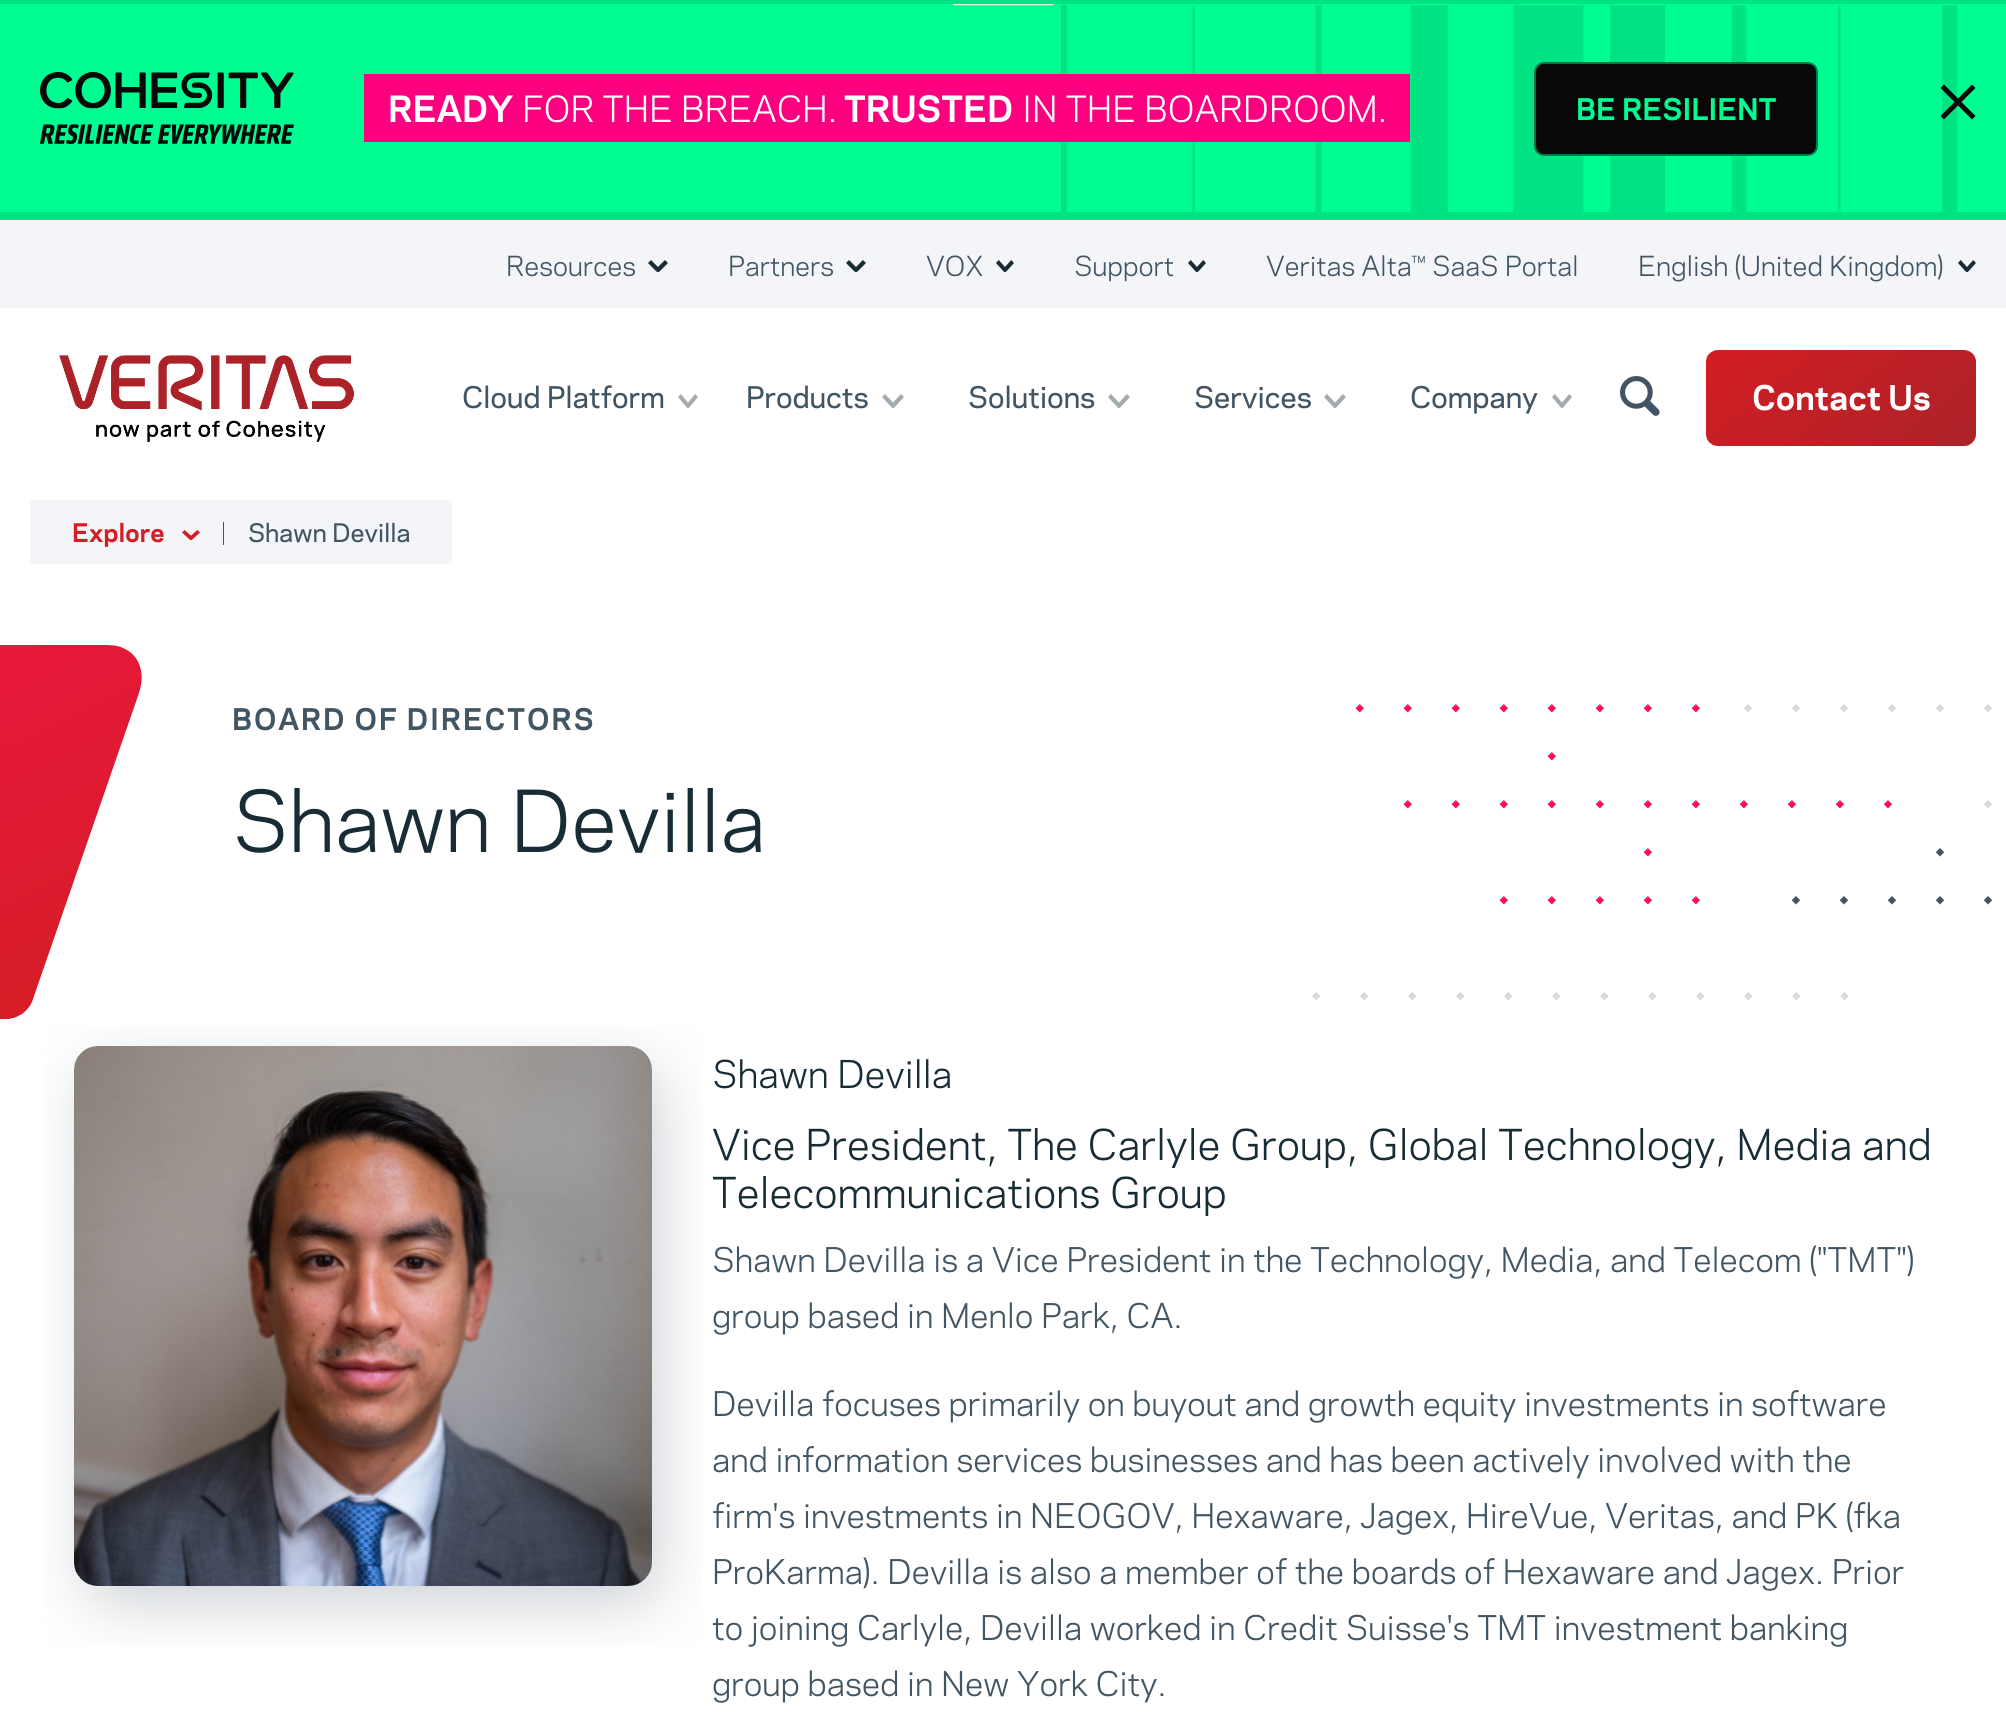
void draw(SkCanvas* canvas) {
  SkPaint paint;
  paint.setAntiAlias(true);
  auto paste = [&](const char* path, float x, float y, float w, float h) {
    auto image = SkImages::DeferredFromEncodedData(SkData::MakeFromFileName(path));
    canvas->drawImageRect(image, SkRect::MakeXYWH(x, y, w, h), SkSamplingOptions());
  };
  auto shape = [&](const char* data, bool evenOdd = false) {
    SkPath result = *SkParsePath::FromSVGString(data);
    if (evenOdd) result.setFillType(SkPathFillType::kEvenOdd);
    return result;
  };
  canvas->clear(0xfff4f5f8);
  paste("img/1.png", 0, 4, 2006, 208);
  paint.setColor(0xff00e383);
  canvas->drawRect(SkRect::MakeXYWH(0, 0, 2006, 4), paint);
  canvas->drawRect(SkRect::MakeXYWH(0, 212, 2006, 8), paint);
  paste("img/2.png", 40, 72, 254, 72);
  paint.setColor(0xfffc0080);
  canvas->drawRect(SkRect::MakeXYWH(364, 74, 1046, 68), paint);
  paste("img/3.png", 390, 95, 123, 27);
  paste("img/4.png", 525, 95, 309, 28);
  paste("img/5.png", 844, 95, 168, 28);
  paste("img/6.png", 1025, 95, 359, 28);
  paint.setColor(0xff080808);
  canvas->drawRoundRect(SkRect::MakeXYWH(1535, 63, 282, 92), 9, 9, paint);
  paint.setStroke(true);
  paint.setStrokeWidth(2);
  paint.setColor(0xff00774c);
  canvas->drawRoundRect(SkRect::MakeXYWH(1535, 63, 282, 92), 9, 9, paint);
  paste("img/7.png", 1578, 97, 198, 24);
  paint.setStroke(false);
  paint.setColor(0xff080808);
  canvas->drawPath(shape("M1975.5 88L1972 84.5L1958 98.5L1944 84.5L1940.5 88L1954.5 102L1940.5 116L1944 119.5L1958 105.5L1972 119.5L1975.5 116L1961.5 102Z"), paint);
  paint.setColor(0xffffffff);
  canvas->drawRect(SkRect::MakeXYWH(0, 308, 2006, 1421), paint);
  paste("img/8.png", 508, 255, 127, 22);
  paste("img/9.png", 648, 260, 20, 12);
  paste("img/10.png", 730, 255, 103, 22);
  paste("img/9.png", 846, 260, 20, 12);
  paste("img/11.png", 926, 255, 57, 22);
  paste("img/12.png", 996, 260, 18, 12);
  paste("img/13.png", 1075, 255, 99, 27);
  paste("img/12.png", 1188, 260, 18, 12);
  paste("img/14.png", 1266, 255, 311, 22);
  paste("img/15.png", 1640, 254, 303, 28);
  paste("img/12.png", 1958, 260, 18, 12);
  paste("img/16.png", 59, 355, 295, 87);
  paste("img/17.png", 463, 385, 201, 24);
  paste("img/18.png", 678, 394, 20, 14);
  paste("img/19.png", 748, 385, 120, 24);
  paste("img/20.png", 882, 394, 22, 14);
  paste("img/21.png", 969, 385, 126, 24);
  paste("img/20.png", 1108, 394, 22, 14);
  paste("img/22.png", 1195, 385, 116, 24);
  paste("img/20.png", 1324, 394, 22, 14);
  paste("img/23.png", 1411, 385, 127, 29);
  paste("img/18.png", 1552, 394, 20, 14);
  paste("img/24.png", 1620, 376, 40, 40);
  {
    const SkColor colors[] = {0xffd41d24, 0xffab2328};
    const float stops[] = {0, 1};
    const SkPoint ends[] = {{1762, 303}, {1920, 493}};
    paint.setShader(SkGradientShader::MakeLinear(ends, colors, stops, 2, SkTileMode::kClamp));
    paint.setAlpha(255);
  }
  canvas->drawRoundRect(SkRect::MakeXYWH(1706, 350, 270, 96), 12, 12, paint);
  paste("img/25.png", 1753, 384, 177, 27);
  paint.setShader(nullptr);
  paint.setColor(0xfff4f5f8);
  canvas->drawRoundRect(SkRect::MakeXYWH(30, 500, 422, 64), 4, 4, paint);
  paste("img/26.png", 73, 522, 91, 25);
  paste("img/27.png", 182, 530, 18, 10);
  paint.setColor(0xff425563);
  canvas->drawRect(SkRect::MakeXYWH(223, 522, 1, 23), paint);
  paste("img/28.png", 249, 522, 161, 21);
  {
    const SkColor colors[] = {0xfffc1255, 0xffd41d24};
    const float stops[] = {0, 1};
    const SkPoint ends[] = {{-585, 476}, {-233, 1188}};
    paint.setShader(SkGradientShader::MakeLinear(ends, colors, stops, 2, SkTileMode::kClamp));
    paint.setAlpha(255);
  }
  canvas->drawPath(shape("M-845 645H107C134 645 148 666 139 693L33 999C30 1010 18 1019 7 1019H-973Z"), paint);
  paste("img/29.png", 234, 707, 359, 24);
  paste("img/30.png", 1312, 704, 681, 296);
  paste("img/31.png", 237, 788, 524, 65);
  paste("img/32.png", 44, 1026, 658, 620);
  paste("img/33.png", 714, 1059, 236, 30);
  paste("img/34.png", 713, 1128, 1216, 41);
  paste("img/35.png", 713, 1176, 512, 40);
  paste("img/36.png", 714, 1245, 1199, 34);
  paste("img/37.png", 713, 1302, 467, 33);
  paste("img/38.png", 714, 1390, 1171, 33);
  paste("img/39.png", 713, 1446, 1137, 33);
  paste("img/40.png", 713, 1501, 1186, 34);
  paste("img/41.png", 714, 1557, 1190, 34);
  paste("img/42.png", 712, 1614, 1135, 33);
  paste("img/43.png", 713, 1670, 451, 33);
}
